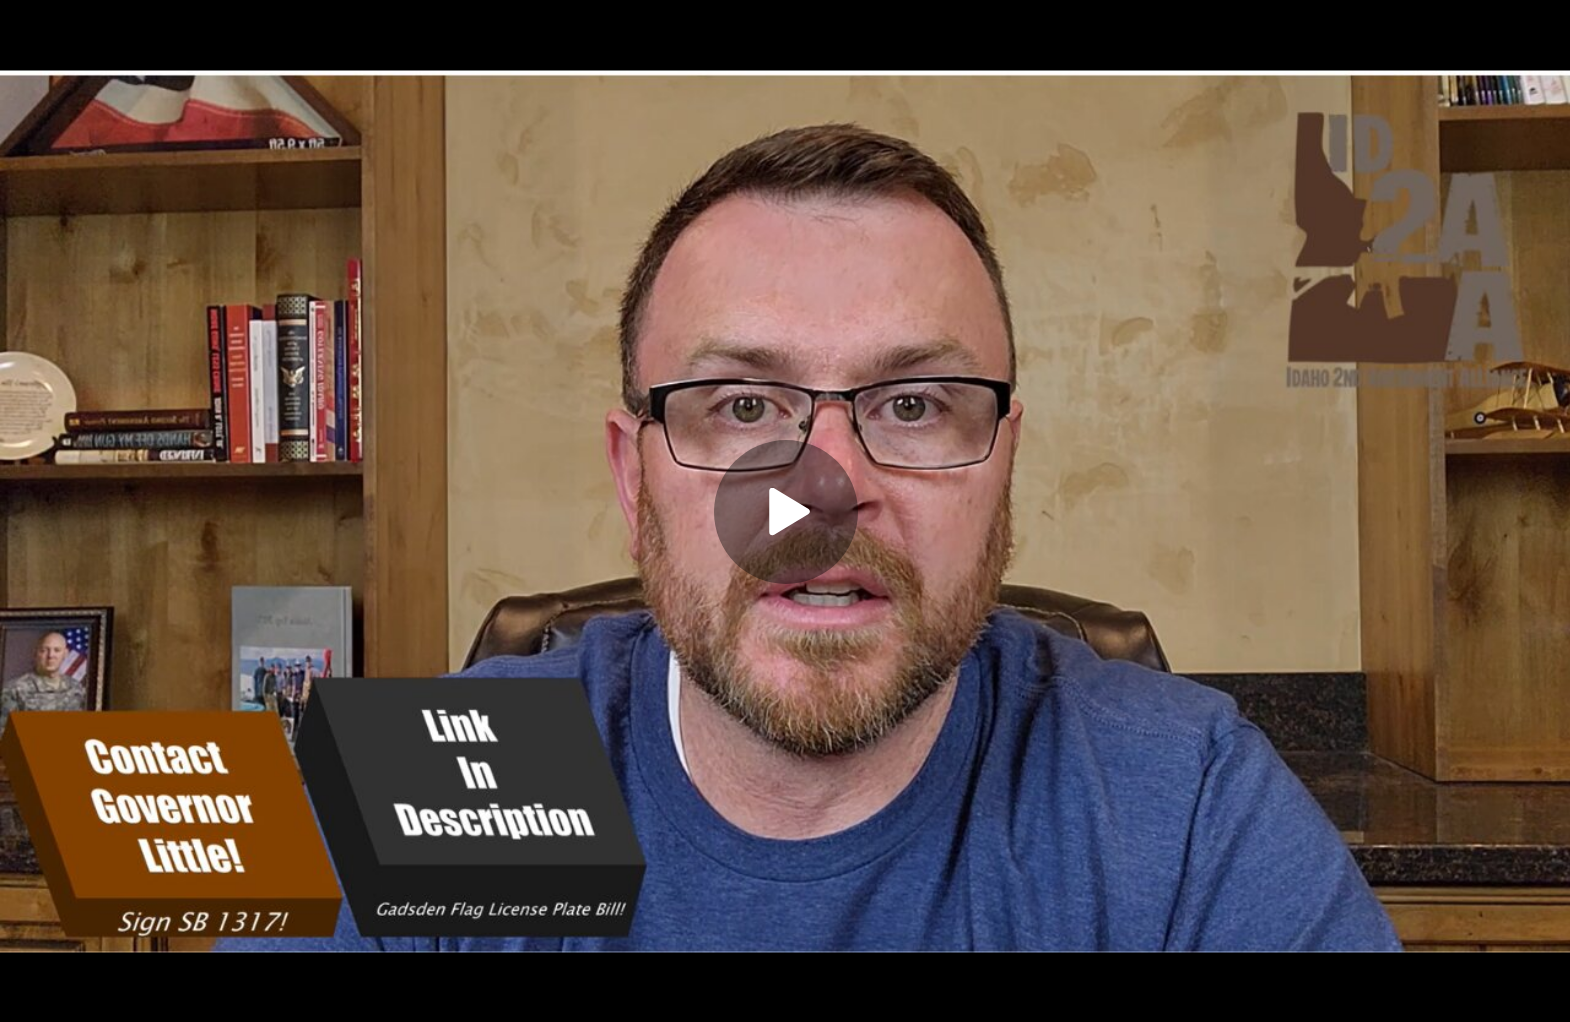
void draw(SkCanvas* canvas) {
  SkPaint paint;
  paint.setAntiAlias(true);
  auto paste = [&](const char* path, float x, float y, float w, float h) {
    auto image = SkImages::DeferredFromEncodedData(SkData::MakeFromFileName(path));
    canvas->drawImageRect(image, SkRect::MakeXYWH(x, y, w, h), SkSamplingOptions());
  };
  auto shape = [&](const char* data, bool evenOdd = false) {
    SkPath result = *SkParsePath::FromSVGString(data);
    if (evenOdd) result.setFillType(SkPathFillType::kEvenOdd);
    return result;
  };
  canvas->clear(0xff000000);
  paste("img/1.png", 0, 70, 1570, 883);
  paint.setColor(0x66000000);
  canvas->drawCircle(786, 512, 72, paint);
  paint.setColor(0xffffffff);
  canvas->drawPath(shape("M807 512L772 491V532Z"), paint);
  canvas->save();
  canvas->clipRect(SkRect::MakeXYWH(762, 488, 48, 48));
  paint.setStroke(true);
  paint.setStrokeWidth(6.5f);
  paint.setStrokeJoin(SkPaint::kRound_Join);
  canvas->drawPath(shape("M806.5 511.5L772.5 491V532Z"), paint);
  canvas->restore();
}
